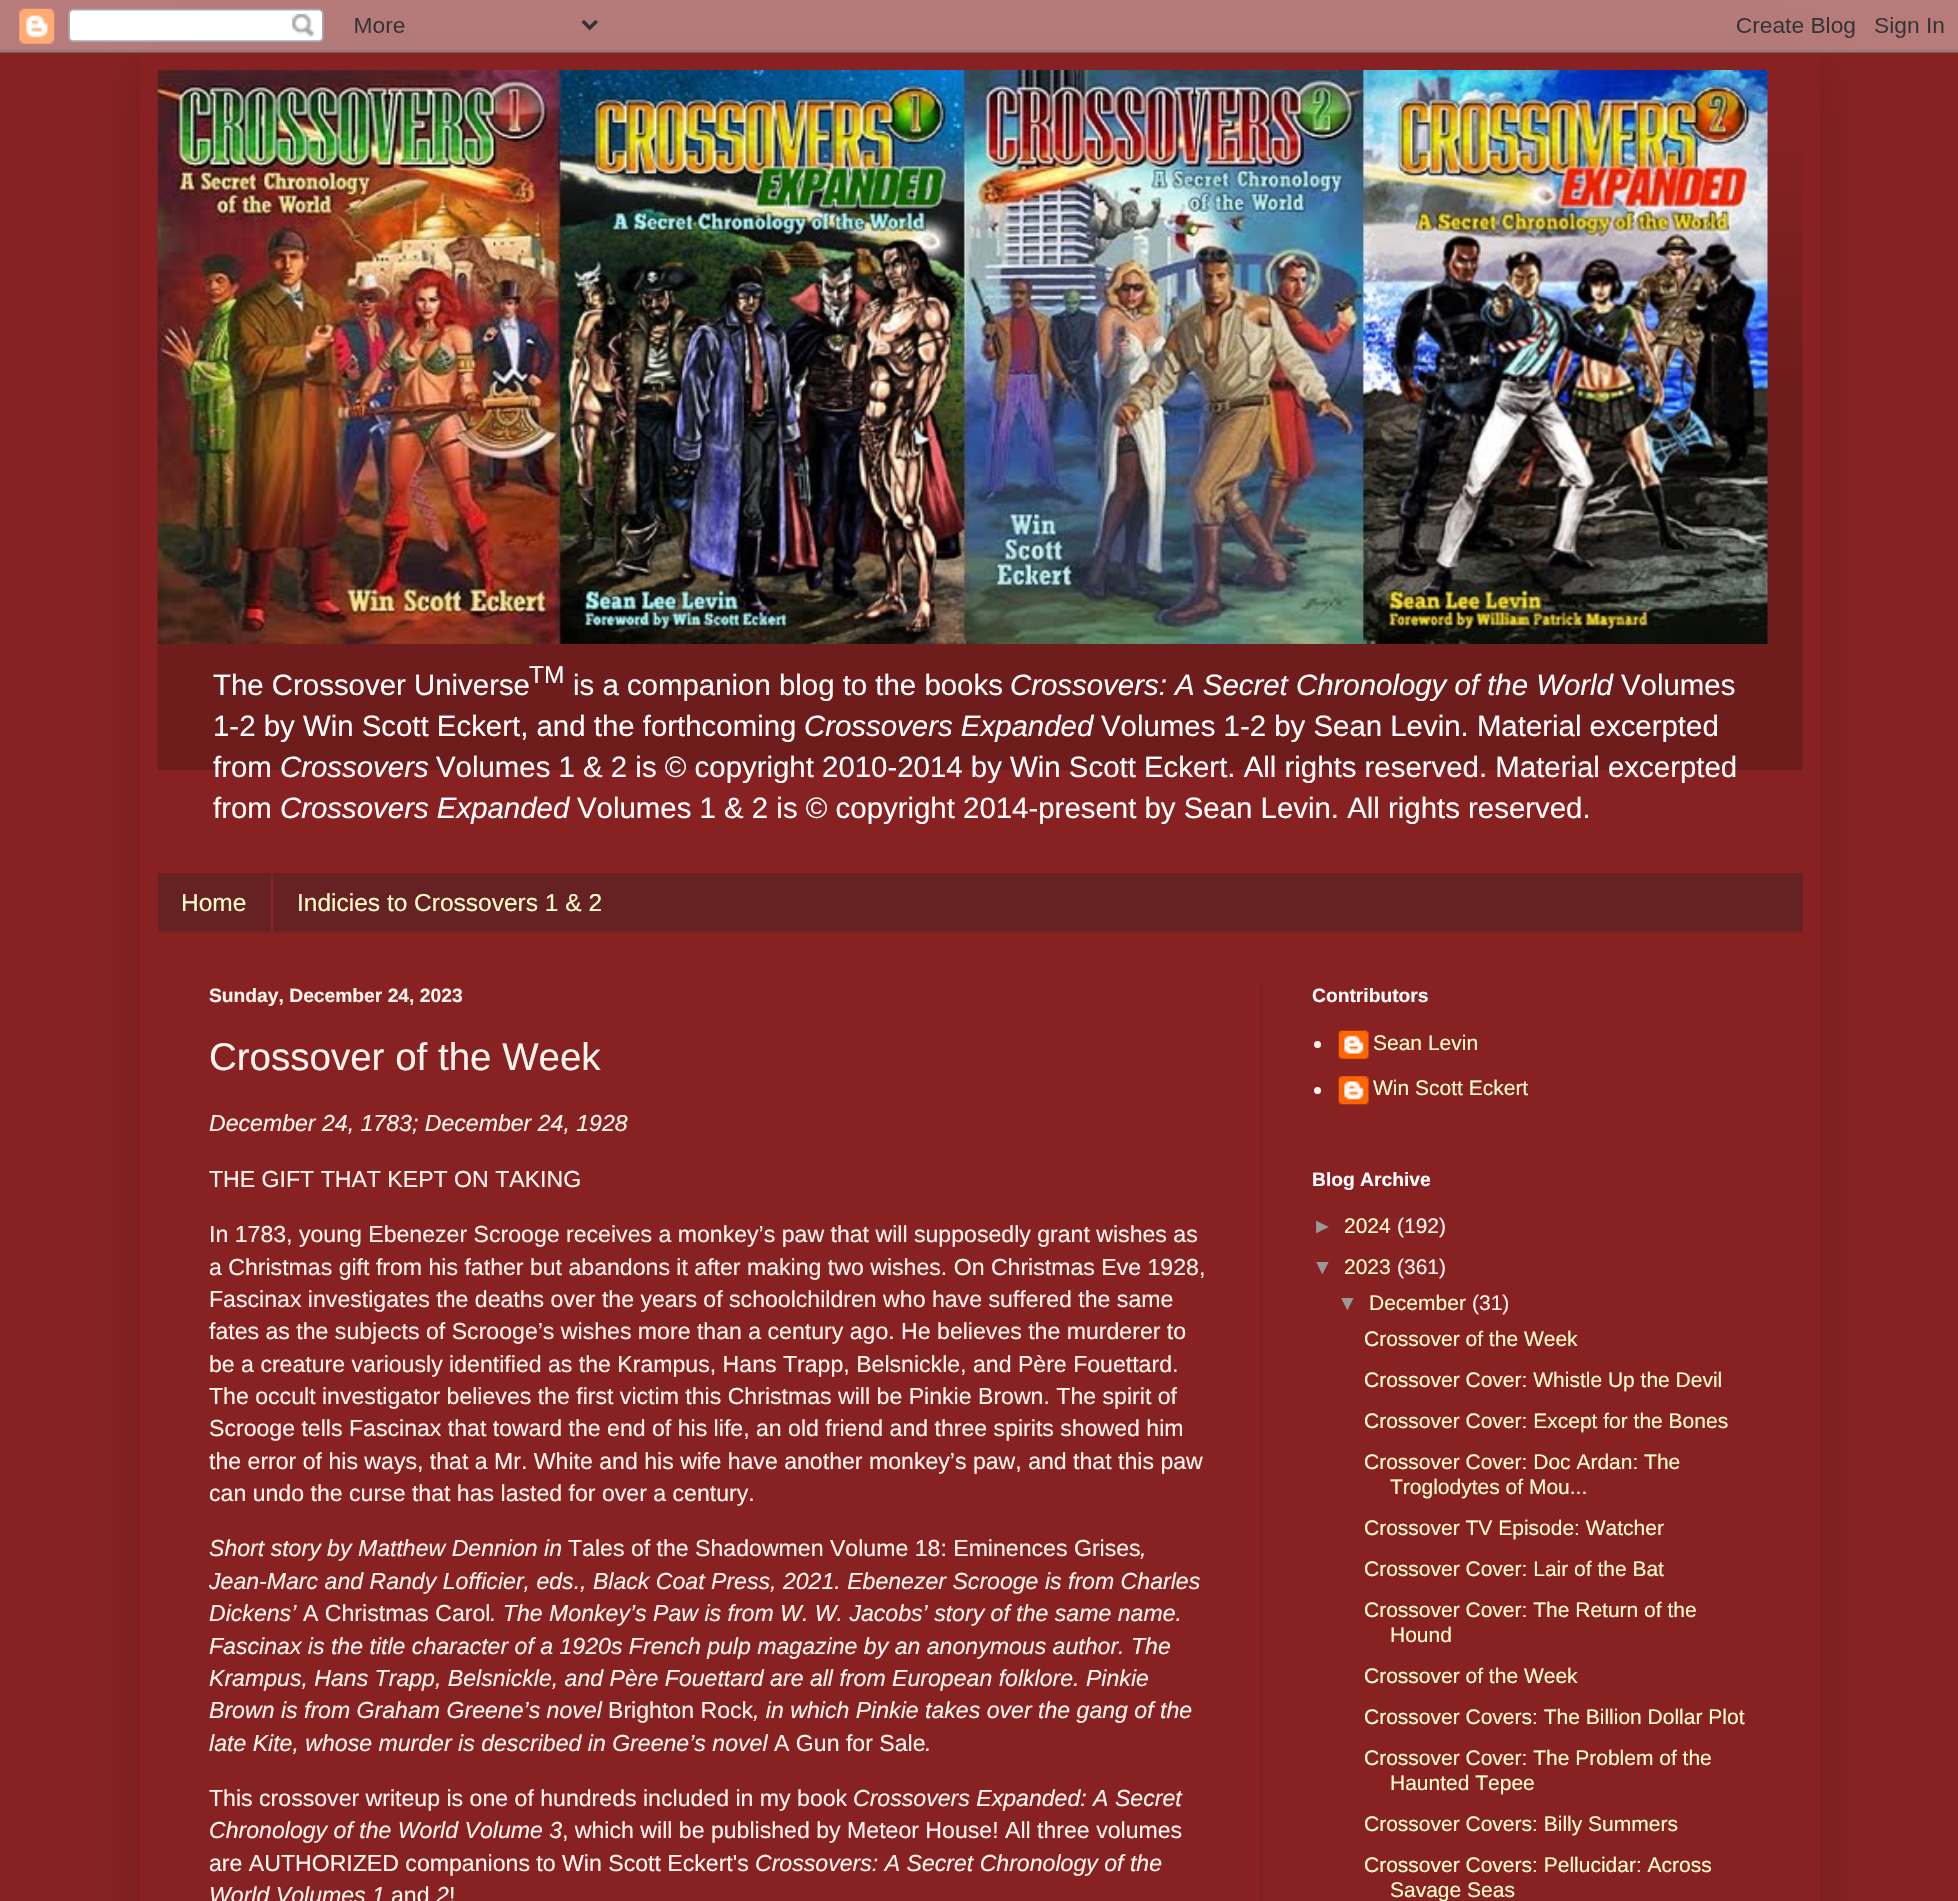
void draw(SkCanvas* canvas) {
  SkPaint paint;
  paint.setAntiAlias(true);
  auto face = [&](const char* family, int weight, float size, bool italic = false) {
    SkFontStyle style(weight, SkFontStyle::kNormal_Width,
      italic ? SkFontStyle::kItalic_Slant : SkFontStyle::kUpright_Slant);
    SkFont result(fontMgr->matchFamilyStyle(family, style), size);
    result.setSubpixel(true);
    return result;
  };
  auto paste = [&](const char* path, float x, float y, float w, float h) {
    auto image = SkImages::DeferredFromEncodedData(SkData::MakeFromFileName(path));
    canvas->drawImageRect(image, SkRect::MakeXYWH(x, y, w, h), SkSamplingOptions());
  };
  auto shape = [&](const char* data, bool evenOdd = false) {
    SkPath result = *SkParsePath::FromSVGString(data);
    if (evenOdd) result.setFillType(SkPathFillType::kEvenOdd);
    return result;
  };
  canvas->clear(0xff882222);
  canvas->save();
  canvas->clipPath(shape("M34 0H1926V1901H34ZM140 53H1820V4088H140Z", true), true);
  paint.setColor(0x26000000);
  paint.setMaskFilter(SkMaskFilter::MakeBlur(kNormal_SkBlurStyle, 35));
  canvas->drawRect(SkRect::MakeXYWH(140, 53, 1680, 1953), paint);
  paint.setMaskFilter(nullptr);
  canvas->restore();
  paste("img/1.png", 0, 0, 1958, 53);
  paste("img/2.png", 157, 143, 1646, 627);
  paste("img/3.png", 157, 70, 1611, 574);
  {
    const struct { float x, y, w, h; SkColor color; } items[] = {
      {158, 873, 1645, 58, 0xff662222},
      {158, 931, 1645, 2, 0xff772222},
      {271, 873, 2, 58, 0xff882222},
      {1260, 985, 2, 916, 0xff772222},
    };
    for (auto [x, y, w, h, color] : items) {
      paint.setColor(color);
      canvas->drawRect(SkRect::MakeXYWH(x, y, w, h), paint);
    }
  }
  paint.setColor(0xfffff5ee);
  canvas->drawCircle(1317.5f, 1044.5f, 3.5f, paint);
  paste("img/4.png", 1338, 1030, 31, 29);
  canvas->drawCircle(1317.5f, 1090.5f, 3.5f, paint);
  paste("img/5.png", 1338, 1076, 31, 29);
  auto f0 = face("Liberation Sans", 400, 29.4f);
  paint.setColor(0xffffffff);
  canvas->drawString("The Crossover Universe", 213, 695, f0, paint);
  auto f1 = face("Liberation Sans", 400, 24.5f);
  canvas->drawString("TM", 529, 683, f1, paint);
  canvas->drawString("is a companion blog to the books", 573, 695, f0, paint);
  auto f2 = face("Liberation Sans", 400, 29.4f, true);
  canvas->drawString("Crossovers: A Secret Chronology of the World", 1010, 695, f2, paint);
  canvas->drawString("Volumes", 1621, 695, f0, paint);
  canvas->drawString("1-2 by Win Scott Eckert, and the forthcoming", 213, 736, f0, paint);
  canvas->drawString("Crossovers Expanded", 804, 736, f2, paint);
  canvas->drawString("Volumes 1-2 by Sean Levin. Material excerpted", 1101, 736, f0, paint);
  canvas->drawString("from", 213, 777, f0, paint);
  canvas->drawString("Crossovers", 280, 777, f2, paint);
  canvas->drawString("Volumes 1 & 2 is © copyright 2010-2014 by Win Scott Eckert. All rights reserved. Material excerpted", 436, 777, f0, paint);
  canvas->drawString("from", 213, 818, f0, paint);
  canvas->drawString("Crossovers Expanded", 280, 818, f2, paint);
  canvas->drawString("Volumes 1 & 2 is © copyright 2014-present by Sean Levin. All rights reserved.", 577, 818, f0, paint);
  paint.setColor(0xffffffcc);
  canvas->drawString("Home", 181, 911, f1, paint);
  canvas->drawString("Indicies to Crossovers 1 & 2", 297, 911, f1, paint);
  auto f3 = face("Liberation Sans", 700, 19.25f);
  paint.setColor(0xfffff5ee);
  canvas->drawString("Sunday, December 24, 2023", 209, 1002, f3, paint);
  auto f4 = face("Liberation Sans", 400, 38.5f);
  canvas->drawString("Crossover of the Week", 209, 1070, f4, paint);
  auto f5 = face("Liberation Sans", 400, 23.1f, true);
  canvas->drawString("December 24, 1783; December 24, 1928", 209, 1131, f5, paint);
  auto f6 = face("Liberation Sans", 400, 23.1f);
  {
    const struct { const char* s; float x, y; } items[] = {
      {"THE GIFT THAT KEPT ON TAKING", 209, 1187},
      {"In 1783, young Ebenezer Scrooge receives a monkey’s paw that will supposedly grant wishes as", 209, 1242},
      {"a Christmas gift from his father but abandons it after making two wishes. On Christmas Eve 1928,", 209, 1275},
      {"Fascinax investigates the deaths over the years of schoolchildren who have suffered the same", 209, 1307},
      {"fates as the subjects of Scrooge’s wishes more than a century ago. He believes the murderer to", 209, 1339},
      {"be a creature variously identified as the Krampus, Hans Trapp, Belsnickle, and Père Fouettard.", 209, 1372},
      {"The occult investigator believes the first victim this Christmas will be Pinkie Brown. The spirit of", 209, 1404},
      {"Scrooge tells Fascinax that toward the end of his life, an old friend and three spirits showed him", 209, 1436},
      {"the error of his ways, that a Mr. White and his wife have another monkey’s paw, and that this paw", 209, 1469},
      {"can undo the curse that has lasted for over a century.", 209, 1501},
    };
    for (auto [s, x, y] : items) {
      canvas->drawString(s, x, y, f6, paint);
    }
  }
  canvas->drawString("Short story by Matthew Dennion in", 209, 1556, f5, paint);
  canvas->drawString("Tales of the Shadowmen Volume 18: Eminences Grises", 568, 1556, f6, paint);
  {
    const struct { const char* s; float x, y; } items[] = {
      {",", 1140, 1556},
      {"Jean-Marc and Randy Lofficier, eds., Black Coat Press, 2021. Ebenezer Scrooge is from Charles", 209, 1589},
      {"Dickens’", 209, 1621},
    };
    for (auto [s, x, y] : items) {
      canvas->drawString(s, x, y, f5, paint);
    }
  }
  canvas->drawString("A Christmas Carol", 303, 1621, f6, paint);
  {
    const struct { const char* s; float x, y; } items[] = {
      {". The Monkey’s Paw is from W. W. Jacobs’ story of the same name.", 490, 1621},
      {"Fascinax is the title character of a 1920s French pulp magazine by an anonymous author. The", 209, 1654},
      {"Krampus, Hans Trapp, Belsnickle, and Père Fouettard are all from European folklore. Pinkie", 209, 1686},
      {"Brown is from Graham Greene’s novel", 209, 1718},
    };
    for (auto [s, x, y] : items) {
      canvas->drawString(s, x, y, f5, paint);
    }
  }
  canvas->drawString("Brighton Rock", 608, 1718, f6, paint);
  canvas->drawString(", in which Pinkie takes over the gang of the", 753, 1718, f5, paint);
  canvas->drawString("late Kite, whose murder is described in Greene’s novel", 209, 1751, f5, paint);
  canvas->drawString("A Gun for Sale", 774, 1751, f6, paint);
  canvas->drawString(".", 925, 1751, f5, paint);
  canvas->drawString("This crossover writeup is one of hundreds included in my book", 209, 1806, f6, paint);
  canvas->drawString("Crossovers Expanded: A Secret", 853, 1806, f5, paint);
  canvas->drawString("Chronology of the World Volume 3", 209, 1838, f5, paint);
  canvas->drawString(", which will be published by Meteor House! All three volumes", 562, 1838, f6, paint);
  canvas->drawString("are AUTHORIZED companions to Win Scott Eckert's", 209, 1871, f6, paint);
  canvas->drawString("Crossovers: A Secret Chronology of the", 755, 1871, f5, paint);
  canvas->drawString("World Volumes 1", 209, 1903, f5, paint);
  canvas->drawString("and", 391, 1903, f6, paint);
  canvas->drawString("2", 436, 1903, f5, paint);
  canvas->drawString("!", 449, 1903, f6, paint);
  paint.setColor(0xffffffff);
  canvas->drawString("Contributors", 1312, 1002, f3, paint);
  auto f7 = face("Liberation Sans", 400, 21);
  paint.setColor(0xffffffcc);
  canvas->drawString("Sean Levin", 1373, 1050, f7, paint);
  canvas->drawString("Win Scott Eckert", 1373, 1095, f7, paint);
  paint.setColor(0xffffffff);
  canvas->drawString("Blog Archive", 1312, 1186, f3, paint);
  paint.setColor(0xff999999);
  canvas->drawString("►", 1312, 1233, f7, paint);
  paint.setColor(0xffffffcc);
  canvas->drawString("2024", 1344, 1233, f7, paint);
  paint.setColor(0xfffff5ee);
  canvas->drawString("(192)", 1397, 1233, f7, paint);
  paint.setColor(0xff999999);
  canvas->drawString("▼", 1312, 1274, f7, paint);
  paint.setColor(0xffffffcc);
  canvas->drawString("2023", 1344, 1274, f7, paint);
  paint.setColor(0xfffff5ee);
  canvas->drawString("(361)", 1397, 1274, f7, paint);
  paint.setColor(0xff999999);
  canvas->drawString("▼", 1337, 1310, f7, paint);
  paint.setColor(0xffffffcc);
  canvas->drawString("December", 1369, 1310, f7, paint);
  paint.setColor(0xfffff5ee);
  canvas->drawString("(31)", 1472, 1310, f7, paint);
  paint.setColor(0xffffffcc);
  {
    const struct { const char* s; float x, y; } items[] = {
      {"Crossover of the Week", 1364, 1346},
      {"Crossover Cover: Whistle Up the Devil", 1364, 1387},
      {"Crossover Cover: Except for the Bones", 1364, 1428},
      {"Crossover Cover: Doc Ardan: The", 1364, 1469},
      {"Troglodytes of Mou...", 1390, 1494},
      {"Crossover TV Episode: Watcher", 1364, 1535},
      {"Crossover Cover: Lair of the Bat", 1364, 1576},
      {"Crossover Cover: The Return of the", 1364, 1617},
      {"Hound", 1390, 1642},
      {"Crossover of the Week", 1364, 1683},
      {"Crossover Covers: The Billion Dollar Plot", 1364, 1724},
      {"Crossover Cover: The Problem of the", 1364, 1765},
      {"Haunted Tepee", 1390, 1790},
      {"Crossover Covers: Billy Summers", 1364, 1831},
      {"Crossover Covers: Pellucidar: Across", 1364, 1872},
      {"Savage Seas", 1390, 1897},
    };
    for (auto [s, x, y] : items) {
      canvas->drawString(s, x, y, f7, paint);
    }
  }
}
